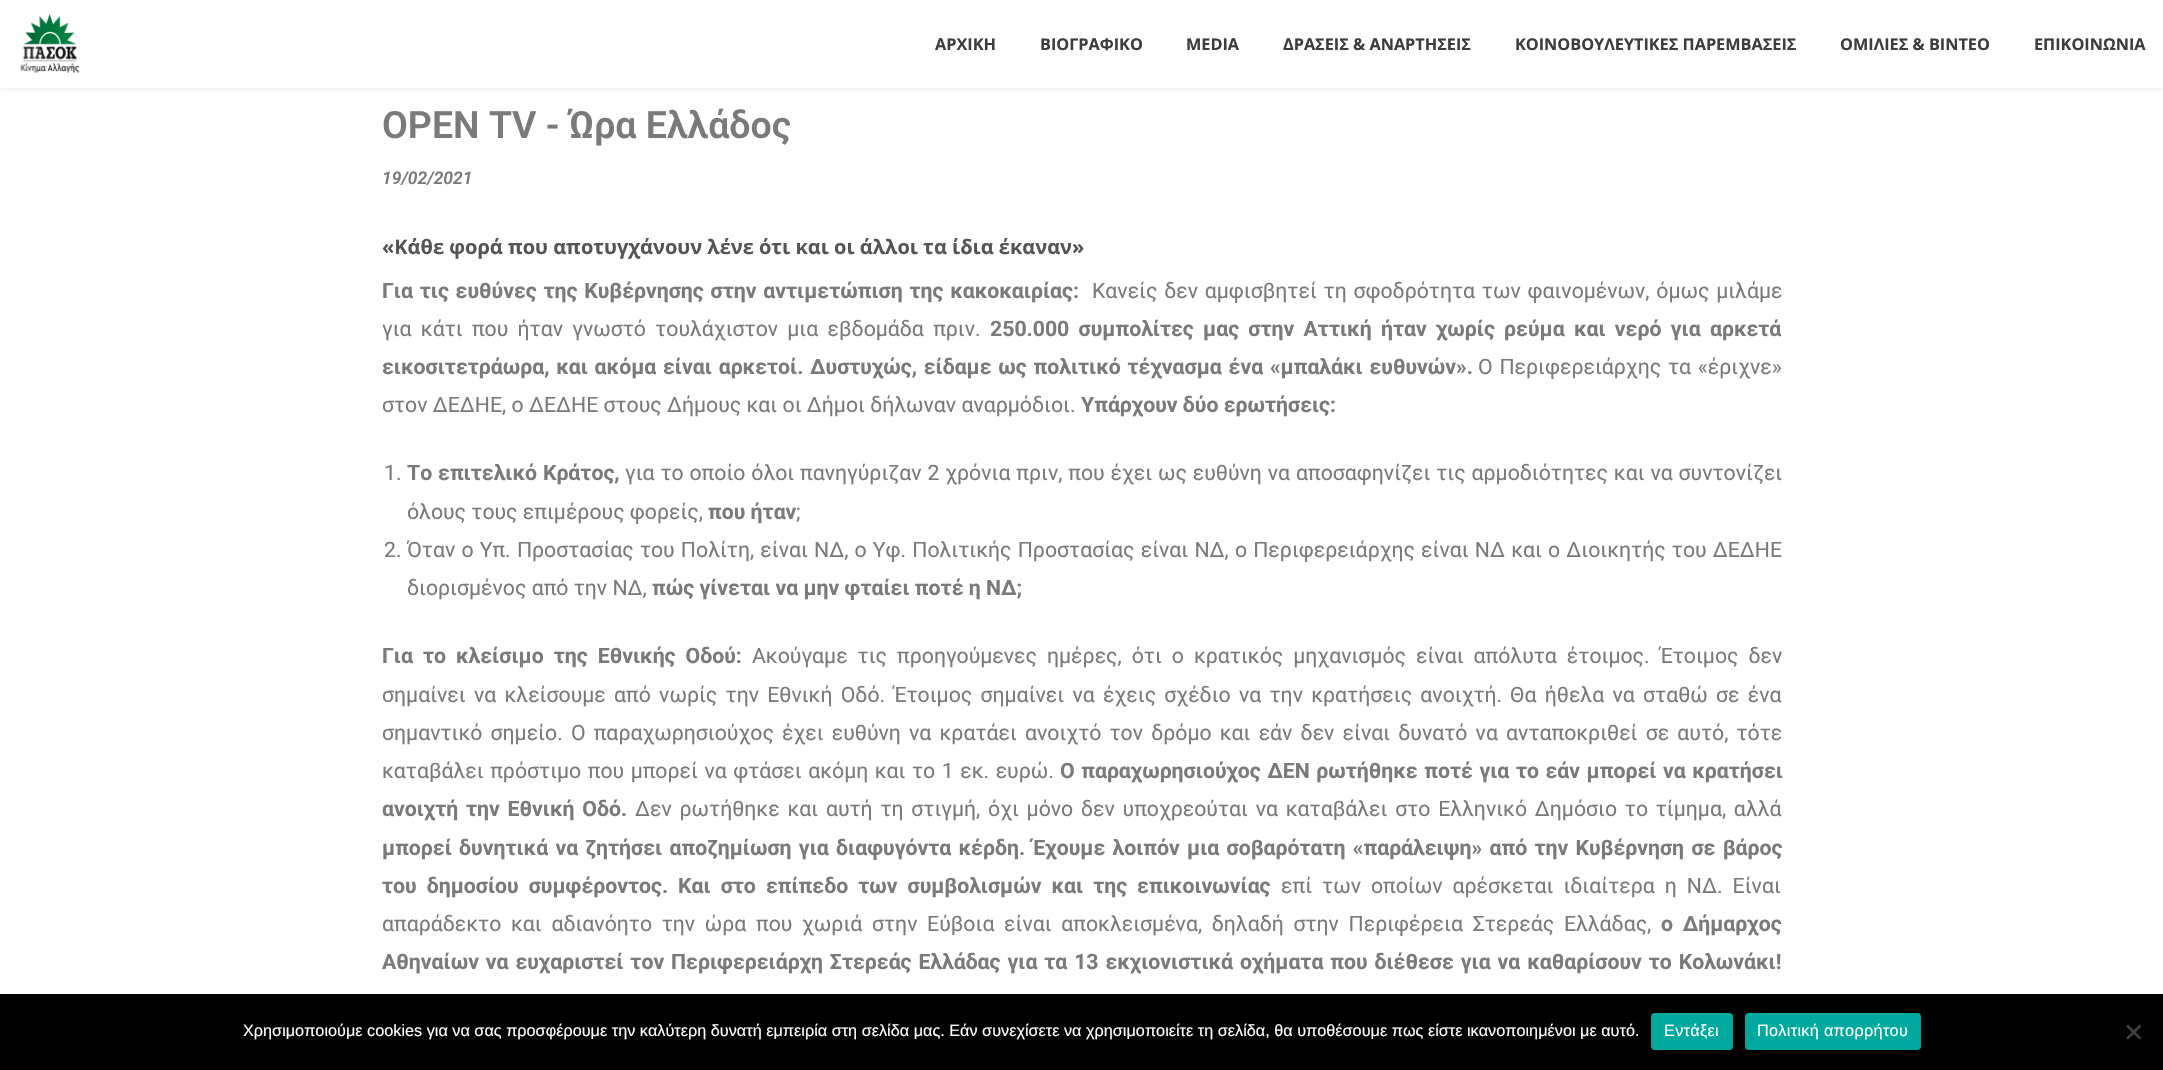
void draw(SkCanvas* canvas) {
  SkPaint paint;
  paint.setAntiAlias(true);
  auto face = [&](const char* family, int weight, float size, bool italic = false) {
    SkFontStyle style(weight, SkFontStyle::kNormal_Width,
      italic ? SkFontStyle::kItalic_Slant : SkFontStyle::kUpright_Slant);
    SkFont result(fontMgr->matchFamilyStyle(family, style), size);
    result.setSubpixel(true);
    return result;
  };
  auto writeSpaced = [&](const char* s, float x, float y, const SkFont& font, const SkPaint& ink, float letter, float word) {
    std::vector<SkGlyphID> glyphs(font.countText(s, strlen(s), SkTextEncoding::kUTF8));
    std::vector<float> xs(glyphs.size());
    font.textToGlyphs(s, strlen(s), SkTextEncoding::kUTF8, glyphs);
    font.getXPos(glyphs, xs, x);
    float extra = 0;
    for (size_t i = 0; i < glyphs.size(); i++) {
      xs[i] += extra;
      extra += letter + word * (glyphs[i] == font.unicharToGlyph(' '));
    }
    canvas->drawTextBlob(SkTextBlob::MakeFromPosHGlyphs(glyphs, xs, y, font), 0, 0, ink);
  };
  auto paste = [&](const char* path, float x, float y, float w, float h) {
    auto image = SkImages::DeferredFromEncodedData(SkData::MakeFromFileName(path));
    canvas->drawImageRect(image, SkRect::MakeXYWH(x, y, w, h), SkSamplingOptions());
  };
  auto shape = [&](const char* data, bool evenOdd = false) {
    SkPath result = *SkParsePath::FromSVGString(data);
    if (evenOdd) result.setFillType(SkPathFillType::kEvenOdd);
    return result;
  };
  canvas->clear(0xffffffff);
  canvas->save();
  canvas->clipPath(shape("M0 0H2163V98H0ZM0 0H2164V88H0Z", true), true);
  paint.setColor(0x1a000000);
  paint.setMaskFilter(SkMaskFilter::MakeBlur(kNormal_SkBlurStyle, 3));
  canvas->drawRect(SkRect::MakeXYWH(0, 0, 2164, 88), paint);
  paint.setMaskFilter(nullptr);
  canvas->restore();
  paint.setColor(0xb3ffffff);
  canvas->drawRect(SkRect::MakeXYWH(0, 87, 2163, 1), paint);
  paste("img/1.png", 20, 13, 60, 60);
  paint.setColor(0xff000000);
  canvas->drawRect(SkRect::MakeXYWH(0, 994, 2163, 76), paint);
  paint.setColor(0xff00a99d);
  canvas->drawRoundRect(SkRect::MakeXYWH(1651, 1013, 82, 37), 4, 4, paint);
  canvas->drawRoundRect(SkRect::MakeXYWH(1745, 1013, 176, 37), 4, 4, paint);
  paint.setColor(0xff404040);
  canvas->drawPath(shape("M2139.5 1024.5L2141.5 1026.5L2128 1039.5L2126 1038Z"), paint);
  canvas->drawPath(shape("M2126 1026.5L2128 1024.5L2141.5 1038L2139.5 1039.5Z"), paint);
  auto f0 = face("Open Sans", 700, 16.25f);
  paint.setColor(0xff3d3d3d);
  {
    const struct { const char* s; float x, y; } items[] = {
      {"ΑΡΧΙΚΗ", 935, 50},
      {"ΒΙΟΓΡΑΦΙΚΟ", 1040, 50},
      {"MEDIA", 1186, 50},
      {"ΔΡΑΣΕΙΣ & ΑΝΑΡΤΗΣΕΙΣ", 1283, 50},
      {"ΚΟΙΝΟΒΟΥΛΕΥΤΙΚΕΣ ΠΑΡΕΜΒΑΣΕΙΣ", 1515, 50},
      {"ΟΜΙΛΙΕΣ & ΒΙΝΤΕΟ", 1840, 50},
      {"ΕΠΙΚΟΙΝΩΝΙΑ", 2034, 50},
    };
    for (auto [s, x, y] : items) {
      canvas->drawString(s, x, y, f0, paint);
    }
  }
  auto f1 = face("Roboto", 600, 37.5f);
  paint.setColor(0xff7a7a7a);
  canvas->drawString("OPEN TV - Ώρα Ελλάδος", 382, 138, f1, paint);
  auto f2 = face("Roboto", 600, 17.5f, true);
  canvas->drawString("19/02/2021", 382, 184, f2, paint);
  auto f3 = face("Open Sans", 700, 20);
  paint.setColor(0xff555555);
  canvas->drawString("«Κάθε φορά που αποτυγχάνουν λένε ότι και οι άλλοι τα ίδια έκαναν»", 382, 254, f3, paint);
  auto f4 = face("Roboto", 700, 21.25f);
  paint.setColor(0xff7a7a7a);
  writeSpaced("Για τις ευθύνες της Κυβέρνησης στην αντιμετώπιση της κακοκαιρίας:", 382, 298, f4, paint, 0, 1.5f);
  auto f5 = face("Roboto", 400, 21.25f);
  writeSpaced("Κανείς δεν αμφισβητεί τη σφοδρότητα των φαινομένων, όμως μιλάμε", 1092, 298, f5, paint, 0, 1.5f);
  writeSpaced("για κάτι που ήταν γνωστό τουλάχιστον μια εβδομάδα πριν.", 382, 336, f5, paint, 0, 4);
  writeSpaced("250.000 συμπολίτες μας στην Αττική ήταν χωρίς ρεύμα και νερό για αρκετά", 990, 336, f4, paint, 0, 4);
  writeSpaced("εικοσιτετράωρα, και ακόμα είναι αρκετοί.", 382, 374, f4, paint, 0, 1.5f);
  writeSpaced("Δυστυχώς, είδαμε ως πολιτικό τέχνασμα ένα «μπαλάκι ευθυνών».", 810, 374, f4, paint, 0, 1.5f);
  writeSpaced("Ο Περιφερειάρχης τα «έριχνε»", 1478, 374, f5, paint, 0, 1.5f);
  canvas->drawString("στον ΔΕΔΗΕ, ο ΔΕΔΗΕ στους Δήμους και οι Δήμοι δήλωναν αναρμόδιοι.", 382, 412, f5, paint);
  canvas->drawString("Υπάρχουν δύο ερωτήσεις:", 1081, 412, f4, paint);
  canvas->drawString("1.", 384, 480, f5, paint);
  writeSpaced("Το επιτελικό Κράτος,", 407, 480, f4, paint, 0, 0.6f);
  writeSpaced("για το οποίο όλοι πανηγύριζαν 2 χρόνια πριν, που έχει ως ευθύνη να αποσαφηνίζει τις αρμοδιότητες και να συντονίζει", 625, 480, f5, paint, 0, 0.6f);
  canvas->drawString("όλους τους επιμέρους φορείς,", 407, 519, f5, paint);
  canvas->drawString("που ήταν", 708, 519, f4, paint);
  canvas->drawString(";", 796, 519, f5, paint);
  canvas->drawString("2.", 384, 557, f5, paint);
  writeSpaced("Όταν ο Υπ. Προστασίας του Πολίτη, είναι ΝΔ, ο Υφ. Πολιτικής Προστασίας είναι ΝΔ, ο Περιφερειάρχης είναι ΝΔ και ο Διοικητής του ΔΕΔΗΕ", 407, 557, f5, paint, 0, 0.9f);
  canvas->drawString("διορισμένος από την ΝΔ,", 407, 595, f5, paint);
  canvas->drawString("πώς γίνεται να μην φταίει ποτέ η ΝΔ;", 652, 595, f4, paint);
  writeSpaced("Για το κλείσιμο της Εθνικής Οδού:", 382, 663, f4, paint, 0, 4.75f);
  writeSpaced("Ακούγαμε τις προηγούμενες ημέρες, ότι ο κρατικός μηχανισμός είναι απόλυτα έτοιμος. Έτοιμος δεν", 752, 663, f5, paint, 0, 4.75f);
  writeSpaced("σημαίνει να κλείσουμε από νωρίς την Εθνική Οδό. Έτοιμος σημαίνει να έχεις σχέδιο να την κρατήσεις ανοιχτή.", 382, 702, f5, paint, 0, 3);
  writeSpaced("Θα ήθελα να σταθώ σε ένα", 1510, 702, f5, paint, 0, 3);
  writeSpaced("σημαντικό σημείο. Ο παραχωρησιούχος έχει ευθύνη να κρατάει ανοιχτό τον δρόμο και εάν δεν είναι δυνατό να ανταποκριθεί σε αυτό, τότε", 382, 740, f5, paint, 0, 2.9f);
  writeSpaced("καταβάλει πρόστιμο που μπορεί να φτάσει ακόμη και το 1 εκ. ευρώ.", 382, 778, f5, paint, 0, 1.25f);
  writeSpaced("Ο παραχωρησιούχος ΔΕΝ ρωτήθηκε ποτέ για το εάν μπορεί να κρατήσει", 1060, 778, f4, paint, 0, 1.25f);
  writeSpaced("ανοιχτή την Εθνική Οδό.", 382, 816, f4, paint, 0, 2.5f);
  writeSpaced("Δεν ρωτήθηκε και αυτή τη στιγμή, όχι μόνο δεν υποχρεούται να καταβάλει στο Ελληνικό Δημόσιο το τίμημα, αλλά", 635, 816, f5, paint, 0, 2.5f);
  writeSpaced("μπορεί δυνητικά να ζητήσει αποζημίωση για διαφυγόντα κέρδη. Έχουμε λοιπόν μια σοβαρότατη «παράλειψη» από την Κυβέρνηση σε βάρος", 382, 855, f4, paint, 0, 2);
  writeSpaced("του δημοσίου συμφέροντος.", 382, 893, f4, paint, 0, 4.75f);
  writeSpaced("Και στο επίπεδο των συμβολισμών και της επικοινωνίας", 678, 893, f4, paint, 0, 4.75f);
  writeSpaced("επί των οποίων αρέσκεται ιδιαίτερα η ΝΔ. Είναι", 1281, 893, f5, paint, 0, 4.75f);
  writeSpaced("απαράδεκτο και αδιανόητο την ώρα που χωριά στην Εύβοια είναι αποκλεισμένα, δηλαδή στην Περιφέρεια Στερεάς Ελλάδας,", 382, 931, f5, paint, 0, 4.4f);
  writeSpaced("ο Δήμαρχος", 1661, 931, f4, paint, 0, 4.4f);
  writeSpaced("Αθηναίων να ευχαριστεί τον Περιφερειάρχη Στερεάς Ελλάδας για τα 13 εκχιονιστικά οχήματα που διέθεσε για να καθαρίσουν το Κολωνάκι!", 382, 969, f4, paint, 0, 1.6f);
  auto f6 = face("Liberation Sans", 400, 16.25f);
  paint.setColor(0xffffffff);
  canvas->drawString("Χρησιμοποιούμε cookies για να σας προσφέρουμε την καλύτερη δυνατή εμπειρία στη σελίδα μας. Εάν συνεχίσετε να χρησιμοποιείτε τη σελίδα, θα υποθέσουμε πως είστε ικανοποιημένοι με αυτό.", 243, 1036, f6, paint);
  writeSpaced("Εντάξει", 1664, 1036, f6, paint, 0.3f, 0);
  writeSpaced("Πολιτική απορρήτου", 1757, 1036, f6, paint, 0.3f, 0);
}
